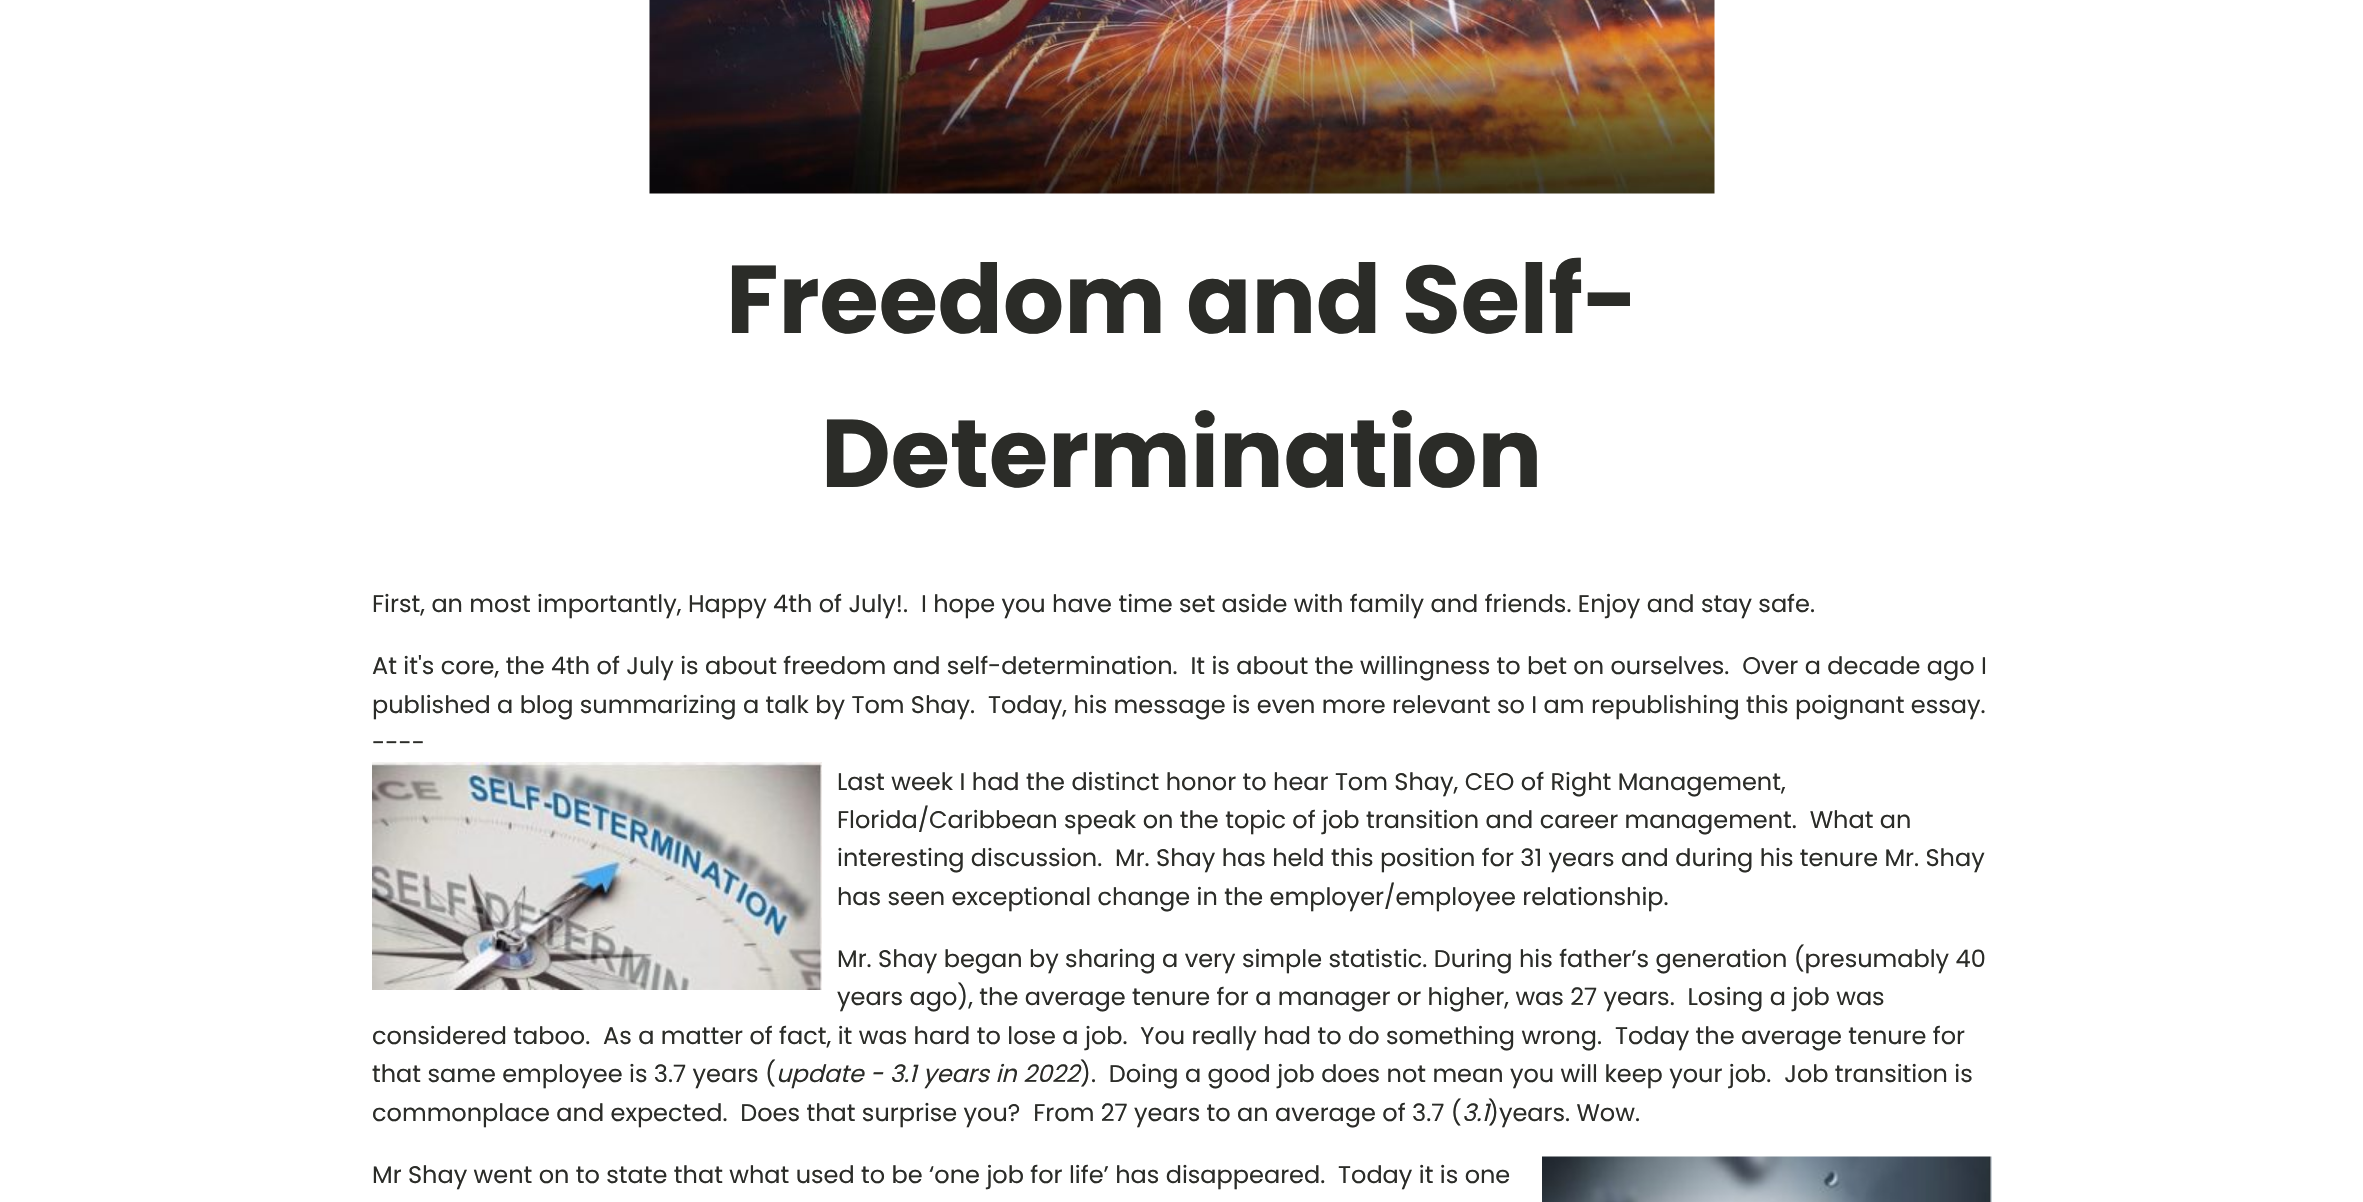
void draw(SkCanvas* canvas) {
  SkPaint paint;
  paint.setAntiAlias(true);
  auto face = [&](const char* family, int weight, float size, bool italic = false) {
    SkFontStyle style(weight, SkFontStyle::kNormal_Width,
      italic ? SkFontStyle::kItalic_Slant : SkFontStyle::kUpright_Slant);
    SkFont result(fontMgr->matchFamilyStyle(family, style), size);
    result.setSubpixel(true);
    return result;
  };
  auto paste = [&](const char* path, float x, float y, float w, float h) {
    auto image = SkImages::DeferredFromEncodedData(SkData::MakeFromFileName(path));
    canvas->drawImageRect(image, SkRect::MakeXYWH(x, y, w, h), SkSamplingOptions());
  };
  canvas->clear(0xffffffff);
  paste("img/1.png", 649, 0, 1066, 194);
  paste("img/2.png", 372, 762, 450, 228);
  paste("img/3.png", 1542, 1156, 450, 46);
  auto f0 = face("Poppins", 700, 96);
  paint.setColor(0xff2b2c28);
  canvas->drawString("Freedom and Self-", 726, 333, f0, paint);
  canvas->drawString("Determination", 821, 487, f0, paint);
  auto f1 = face("Poppins", 400, 24);
  {
    const struct { const char* s; float x, y; } items[] = {
      {"First, an most importantly, Happy 4th of July!.  I hope you have time set aside with family and friends. Enjoy and stay safe.", 372, 612},
      {"At it's core, the 4th of July is about freedom and self-determination.  It is about the willingness to bet on ourselves.  Over a decade ago I", 372, 674},
      {"published a blog summarizing a talk by Tom Shay.  Today, his message is even more relevant so I am republishing this poignant essay.", 372, 713},
      {"----", 372, 751},
      {"Last week I had the distinct honor to hear Tom Shay, CEO of Right Management,", 837, 790},
      {"Florida/Caribbean speak on the topic of job transition and career management.  What an", 837, 828},
      {"interesting discussion.  Mr. Shay has held this position for 31 years and during his tenure Mr. Shay", 837, 866},
      {"has seen exceptional change in the employer/employee relationship.", 837, 905},
      {"Mr. Shay began by sharing a very simple statistic. During his father’s generation (presumably 40", 837, 967},
      {"years ago), the average tenure for a manager or higher, was 27 years.  Losing a job was", 837, 1005},
      {"considered taboo.  As a matter of fact, it was hard to lose a job.  You really had to do something wrong.  Today the average tenure for", 372, 1044},
      {"that same employee is 3.7 years (", 372, 1082},
    };
    for (auto [s, x, y] : items) {
      canvas->drawString(s, x, y, f1, paint);
    }
  }
  auto f2 = face("Poppins", 400, 24, true);
  canvas->drawString("update - 3.1 years in 2022", 776, 1082, f2, paint);
  canvas->drawString(").  Doing a good job does not mean you will keep your job.  Job transition is", 1080, 1082, f1, paint);
  canvas->drawString("commonplace and expected.  Does that surprise you?  From 27 years to an average of 3.7 (", 372, 1121, f1, paint);
  canvas->drawString("3.1", 1462, 1121, f2, paint);
  canvas->drawString(")years. Wow.", 1488, 1121, f1, paint);
  canvas->drawString("Mr Shay went on to state that what used to be ‘one job for life’ has disappeared.  Today it is one", 372, 1183, f1, paint);
}
